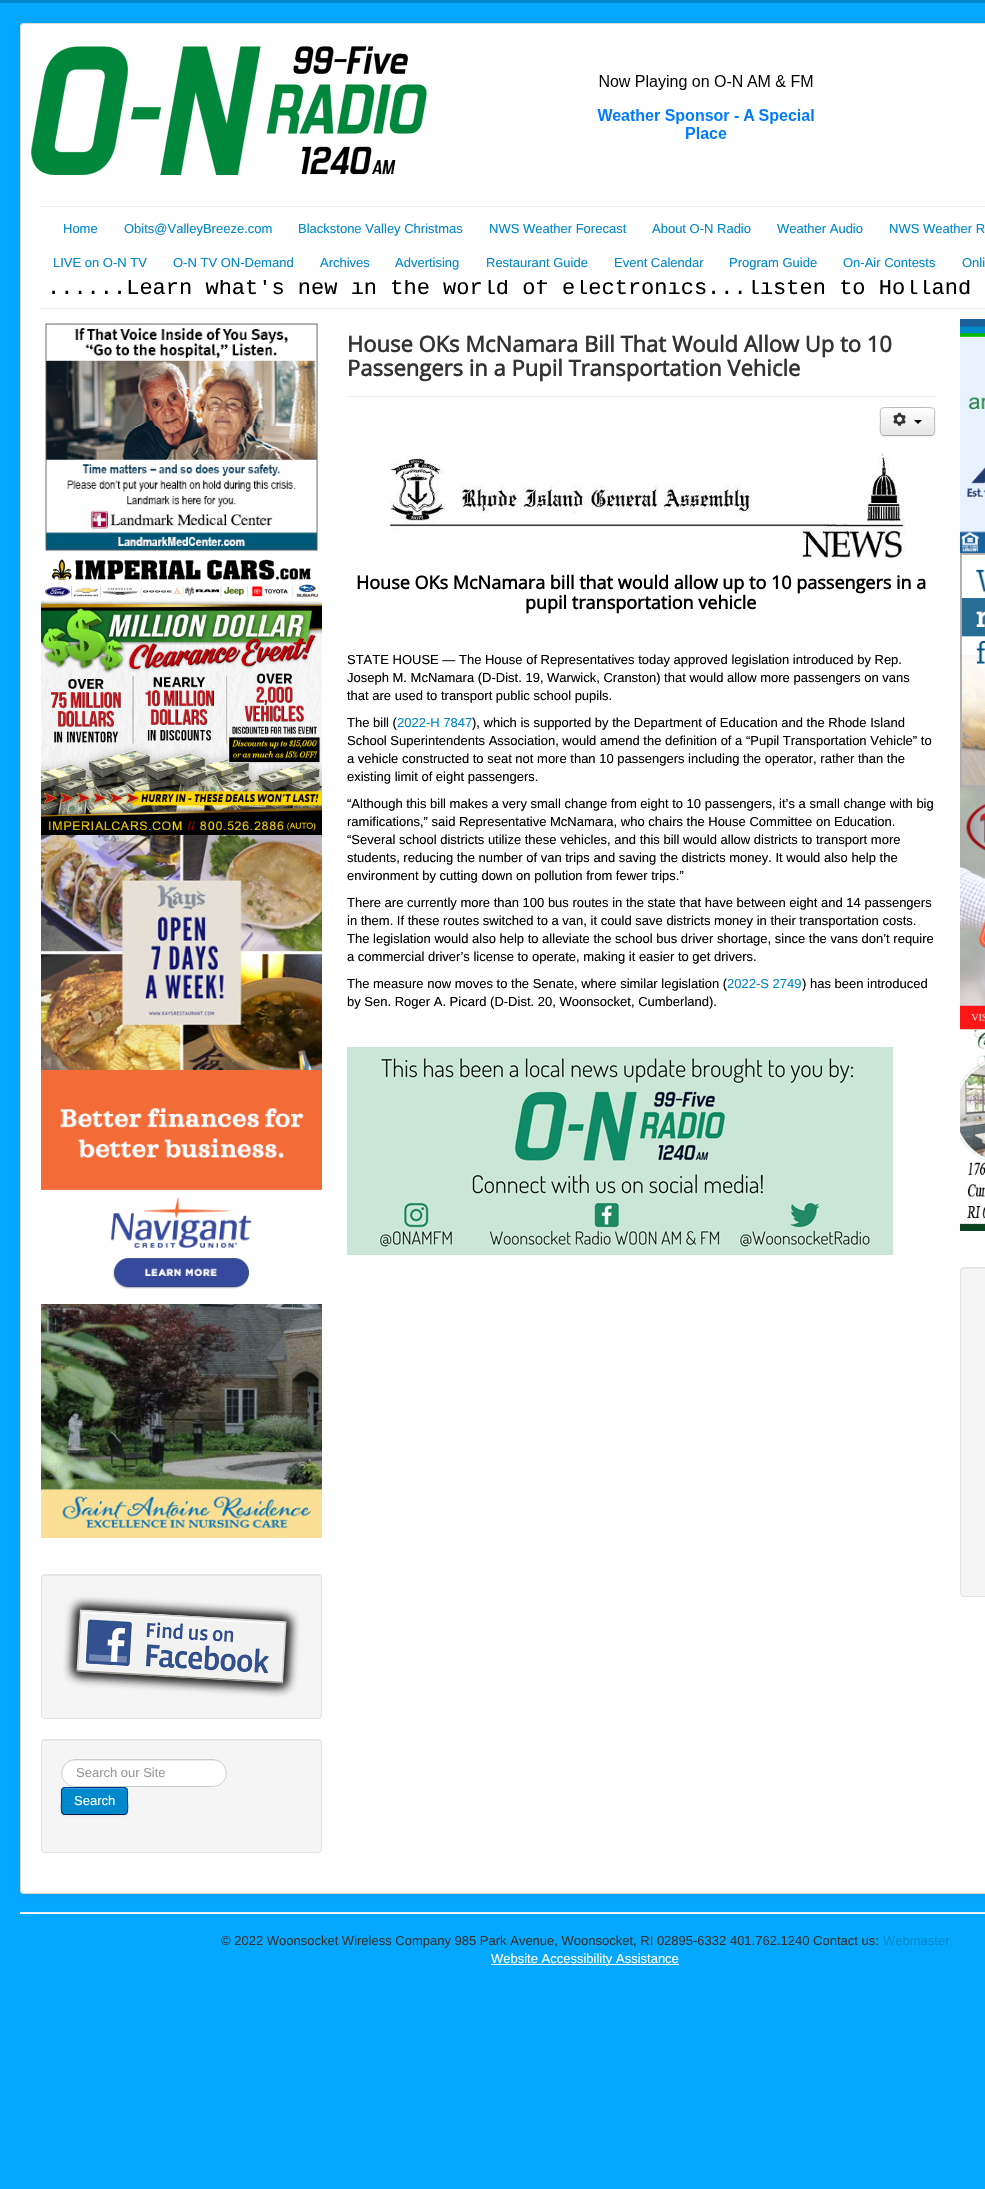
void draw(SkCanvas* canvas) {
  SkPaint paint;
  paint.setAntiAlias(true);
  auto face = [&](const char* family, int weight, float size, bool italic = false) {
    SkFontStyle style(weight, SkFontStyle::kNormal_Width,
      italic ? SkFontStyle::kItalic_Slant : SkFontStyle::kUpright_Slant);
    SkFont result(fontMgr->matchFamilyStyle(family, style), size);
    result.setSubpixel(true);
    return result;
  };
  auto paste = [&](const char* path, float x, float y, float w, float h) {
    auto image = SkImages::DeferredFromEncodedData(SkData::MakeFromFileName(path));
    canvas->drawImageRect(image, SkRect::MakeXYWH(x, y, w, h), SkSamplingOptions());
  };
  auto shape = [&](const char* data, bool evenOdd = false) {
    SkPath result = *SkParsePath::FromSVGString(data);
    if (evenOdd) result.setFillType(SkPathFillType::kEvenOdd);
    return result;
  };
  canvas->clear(0xff05a8ff);
  paint.setColor(0xff0088cc);
  canvas->drawRect(SkRect::MakeXYWH(0, 0, 985, 3), paint);
  paint.setColor(0x0d000000);
  paint.setMaskFilter(SkMaskFilter::MakeBlur(kNormal_SkBlurStyle, 3));
  canvas->drawRoundRect(SkRect::MakeXYWH(20, 23, 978, 1871), 4, 4, paint);
  paint.setMaskFilter(nullptr);
  paint.setColor(0xffffffff);
  canvas->drawRoundRect(SkRect::MakeXYWH(20, 23, 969, 1871), 4, 4, paint);
  paint.setStroke(true);
  paint.setStrokeWidth(1);
  paint.setColor(0x26000000);
  canvas->drawRoundRect(SkRect::MakeXYWH(20.5f, 23.5f, 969, 1870), 3.5f, 3.5f, paint);
  paste("img/1.png", 31, 46, 396, 129);
  paste("img/2.png", 597, 75, 217, 64);
  paint.setStroke(false);
  {
    const struct { float x, y, w, h; SkColor color; } items[] = {
      {41, 206, 944, 1, 0xffececec},
      {41, 308, 944, 1, 0xffececec},
      {347, 396, 588, 1, 0xffeeeeee},
    };
    for (auto [x, y, w, h, color] : items) {
      paint.setColor(color);
      canvas->drawRect(SkRect::MakeXYWH(x, y, w, h), paint);
    }
  }
  paint.setColor(0x0d000000);
  paint.setMaskFilter(SkMaskFilter::MakeBlur(kNormal_SkBlurStyle, 1));
  canvas->drawRoundRect(SkRect::MakeXYWH(880, 408, 55, 29), 4, 4, paint);
  paint.setMaskFilter(nullptr);
  paint.setColor(0xfff5f5f5);
  canvas->drawRoundRect(SkRect::MakeXYWH(880, 407, 55, 29), 4, 4, paint);
  canvas->save();
  canvas->clipPath(shape("M884 407H931C933 407 935 409 935 411V432C935 434 933 436 931 436H884C882 436 880 434 880 432V411C880 409 882 407 884 407Z"), true);
  {
    const SkColor colors[] = {0xffffffff, 0xffe6e6e6};
    const float stops[] = {0, 1};
    const SkPoint ends[] = {{908, 408}, {908, 435}};
    paint.setShader(SkGradientShader::MakeLinear(ends, colors, stops, 2, SkTileMode::kClamp));
    paint.setAlpha(255);
  }
  canvas->drawRect(SkRect::MakeXYWH(880, 408, 55, 27), paint);
  canvas->restore();
  paint.setShader(nullptr);
  paint.setColor(0xffffffff);
  canvas->drawPath(shape("M884 409H931C933 409 934 410 934 412C934 406 928 408 923 408H892C887 408 881 406 881 412C881 410 882 409 884 409Z"), paint);
  paint.setStroke(true);
  paint.setColor(0xffa2a2a2);
  canvas->drawPath(shape("M933.5 434.5C933 435 932 435.5 931 435.5H884C883 435.5 882 435 881.5 434.5"), paint);
  paint.setColor(0xffbbbbbb);
  canvas->drawPath(shape("M881.5 434.5C879.5 432.5 880.5 424 880.5 421.5C880.5 407 878 407.5 892 407.5H923C937 407.5 934.5 407 934.5 421.5C934.5 424 935.5 432.5 933.5 434.5"), paint);
  paste("img/3.png", 893, 412, 13, 14);
  paint.setStroke(false);
  paint.setColor(0xff000000);
  canvas->drawPath(shape("M914 420H922L918 424Z"), paint);
  paste("img/4.png", 390, 452, 515, 108);
  paste("img/5.png", 347, 1047, 546, 208);
  paste("img/6.png", 960, 319, 25, 234);
  paste("img/7.png", 960, 553, 25, 234);
  paste("img/8.png", 960, 787, 25, 243);
  paste("img/9.png", 960, 1030, 25, 201);
  paint.setColor(0xfff5f5f5);
  canvas->drawRoundRect(SkRect::MakeXYWH(960, 1267, 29, 330), 4, 4, paint);
  paint.setColor(0xffe9e9e9);
  canvas->drawPath(shape("M964 1269H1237C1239 1269 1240 1270 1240 1272V1271C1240 1269 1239 1268 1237 1268H964C962 1268 961 1269 961 1271V1272C961 1270 962 1269 964 1269Z"), paint);
  paint.setStroke(true);
  paint.setColor(0xffe3e3e3);
  canvas->drawRoundRect(SkRect::MakeXYWH(960.5f, 1267.5f, 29, 329), 3.5f, 3.5f, paint);
  paste("img/10.png", 45, 323, 273, 228);
  paste("img/11.png", 41, 559, 281, 276);
  paste("img/12.png", 41, 835, 281, 235);
  paste("img/13.png", 41, 1070, 281, 219);
  paste("img/14.png", 41, 1304, 281, 234);
  paint.setStroke(false);
  paint.setColor(0xfff5f5f5);
  canvas->drawRoundRect(SkRect::MakeXYWH(41, 1574, 281, 145), 4, 4, paint);
  paint.setColor(0xffe9e9e9);
  canvas->drawPath(shape("M45 1576H318C320 1576 321 1577 321 1579V1578C321 1576 320 1575 318 1575H45C43 1575 42 1576 42 1578V1579C42 1577 43 1576 45 1576Z"), paint);
  paint.setStroke(true);
  paint.setColor(0xffe3e3e3);
  canvas->drawRoundRect(SkRect::MakeXYWH(41.5f, 1574.5f, 280, 144), 3.5f, 3.5f, paint);
  paste("img/15.png", 63, 1596, 237, 101);
  paint.setStroke(false);
  paint.setColor(0xfff5f5f5);
  canvas->drawRoundRect(SkRect::MakeXYWH(41, 1739, 281, 114), 4, 4, paint);
  paint.setColor(0xffe9e9e9);
  canvas->drawPath(shape("M45 1741H318C320 1741 321 1742 321 1744V1743C321 1741 320 1740 318 1740H45C43 1740 42 1741 42 1743V1744C42 1742 43 1741 45 1741Z"), paint);
  paint.setStroke(true);
  paint.setColor(0xffe3e3e3);
  canvas->drawRoundRect(SkRect::MakeXYWH(41.5f, 1739.5f, 280, 113), 3.5f, 3.5f, paint);
  paint.setStroke(false);
  paint.setColor(0xffffffff);
  canvas->drawRoundRect(SkRect::MakeXYWH(61, 1759, 166, 28), 14, 14, paint);
  paint.setColor(0xffececec);
  canvas->drawPath(shape("M75 1761H216C222 1762 225 1767 226 1773C226 1766 220 1760 213 1760H75C68 1760 62 1766 62 1773V1775C62 1768 67 1761 75 1761Z"), paint);
  paint.setStroke(true);
  paint.setColor(0xffcccccc);
  canvas->drawRoundRect(SkRect::MakeXYWH(61.5f, 1759.5f, 165, 27), 13.5f, 13.5f, paint);
  paint.setStroke(false);
  paint.setColor(0x0d000000);
  paint.setMaskFilter(SkMaskFilter::MakeBlur(kNormal_SkBlurStyle, 1));
  canvas->drawRoundRect(SkRect::MakeXYWH(61, 1788, 67, 28), 4, 4, paint);
  paint.setMaskFilter(nullptr);
  paint.setColor(0xff0088cc);
  canvas->drawRoundRect(SkRect::MakeXYWH(61, 1787, 67, 28), 4, 4, paint);
  paint.setColor(0xff33a0d6);
  canvas->drawPath(shape("M65 1789H124C126 1789 127 1790 127 1792C127 1786 119 1788 114 1788H75C70 1788 62 1786 62 1792C62 1790 63 1789 65 1789Z"), paint);
  paint.setStroke(true);
  paint.setColor(0xff001641);
  canvas->drawPath(shape("M126.5 1813.5L124.5 1814.5H64.5L62.5 1813.5"), paint);
  paint.setColor(0xff002f8d);
  canvas->drawPath(shape("M62.5 1813.5C60.5 1811 61.5 1803.5 61.5 1801C61.5 1786 59.5 1787.5 75 1787.5H114C129.5 1787.5 127.5 1786 127.5 1801C127.5 1803.5 128.5 1811 126.5 1813.5"), paint);
  paint.setStroke(false);
  {
    const struct { float x, y, w, h; SkColor color; } items[] = {
      {20, 1912, 965, 1, 0xffeeeeee},
      {20, 1913, 965, 1, 0xffffffff},
      {491, 1964, 188, 1, 0xffffffff},
    };
    for (auto [x, y, w, h, color] : items) {
      paint.setColor(color);
      canvas->drawRect(SkRect::MakeXYWH(x, y, w, h), paint);
    }
  }
  auto f0 = face("Liberation Sans", 400, 13);
  paint.setColor(0xff0088cc);
  {
    const struct { const char* s; float x, y; } items[] = {
      {"Home", 63, 233},
      {"Obits@ValleyBreeze.com", 124, 233},
      {"Blackstone Valley Christmas", 298, 233},
      {"NWS Weather Forecast", 489, 233},
      {"About O-N Radio", 652, 233},
      {"Weather Audio", 777, 233},
      {"NWS Weather R", 889, 233},
      {"LIVE on O-N TV", 53, 267},
      {"O-N TV ON-Demand", 173, 267},
      {"Archives", 320, 267},
      {"Advertising", 395, 267},
      {"Restaurant Guide", 486, 267},
      {"Event Calendar", 614, 267},
      {"Program Guide", 729, 267},
      {"On-Air Contests", 843, 267},
      {"Onli", 962, 267},
    };
    for (auto [s, x, y] : items) {
      canvas->drawString(s, x, y, f0, paint);
    }
  }
  canvas->save();
  canvas->clipRect(SkRect::MakeXYWH(41, 280, 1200, 23));
  auto f1 = face("Liberation Mono", 400, 22);
  paint.setColor(0xff000000);
  canvas->drawString("......Learn what's new in the world of electronics...listen to Holland", 47, 294, f1, paint);
  canvas->restore();
  auto f2 = face("Open Sans", 700, 22);
  paint.setColor(0xff333333);
  canvas->drawString("House OKs McNamara Bill That Would Allow Up to 10", 347, 352, f2, paint);
  canvas->drawString("Passengers in a Pupil Transportation Vehicle", 347, 376, f2, paint);
  auto f3 = face("Open Sans", 700, 18);
  paint.setColor(0xff000000);
  canvas->drawString("House OKs McNamara bill that would allow up to 10 passengers in a", 356, 589, f3, paint);
  canvas->drawString("pupil transportation vehicle", 525, 609, f3, paint);
  {
    const struct { const char* s; float x, y; } items[] = {
      {"STATE HOUSE — The House of Representatives today approved legislation introduced by Rep.", 347, 664},
      {"Joseph M. McNamara (D-Dist. 19, Warwick, Cranston) that would allow more passengers on vans", 347, 682},
      {"that are used to transport public school pupils.", 347, 700},
      {"The bill (", 347, 727},
    };
    for (auto [s, x, y] : items) {
      canvas->drawString(s, x, y, f0, paint);
    }
  }
  paint.setColor(0xff0088cc);
  canvas->drawString("2022-H 7847", 397, 727, f0, paint);
  paint.setColor(0xff000000);
  {
    const struct { const char* s; float x, y; } items[] = {
      {"), which is supported by the Department of Education and the Rhode Island", 472, 727},
      {"School Superintendents Association, would amend the definition of a “Pupil Transportation Vehicle” to", 347, 745},
      {"a vehicle constructed to seat not more than 10 passengers including the operator, rather than the", 347, 763},
      {"existing limit of eight passengers.", 347, 781},
      {"“Although this bill makes a very small change from eight to 10 passengers, it’s a small change with big", 347, 808},
      {"ramifications,” said Representative McNamara, who chairs the House Committee on Education.", 347, 826},
      {"“Several school districts utilize these vehicles, and this bill would allow districts to transport more", 347, 844},
      {"students, reducing the number of van trips and saving the districts money. It would also help the", 347, 862},
      {"environment by cutting down on pollution from fewer trips.”", 347, 880},
      {"There are currently more than 100 bus routes in the state that have between eight and 14 passengers", 347, 907},
      {"in them. If these routes switched to a van, it could save districts money in their transportation costs.", 347, 925},
      {"The legislation would also help to alleviate the school bus driver shortage, since the vans don’t require", 347, 943},
      {"a commercial driver’s license to operate, making it easier to get drivers.", 347, 961},
      {"The measure now moves to the Senate, where similar legislation (", 347, 988},
    };
    for (auto [s, x, y] : items) {
      canvas->drawString(s, x, y, f0, paint);
    }
  }
  paint.setColor(0xff0088cc);
  canvas->drawString("2022-S 2749", 727, 988, f0, paint);
  paint.setColor(0xff000000);
  canvas->drawString(") has been introduced", 802, 988, f0, paint);
  canvas->drawString("by Sen. Roger A. Picard (D-Dist. 20, Woonsocket, Cumberland).", 347, 1006, f0, paint);
  paint.setColor(0xff999999);
  canvas->drawString("Search our Site", 76, 1777, f0, paint);
  paint.setColor(0xffffffff);
  canvas->drawString("Search", 74, 1805, f0, paint);
  paint.setColor(0xff333333);
  canvas->drawString("© 2022 Woonsocket Wireless Company 985 Park Avenue, Woonsocket, RI 02895-6332 401.762.1240 Contact us:", 221, 1945, f0, paint);
  paint.setColor(0xff0088cc);
  canvas->drawString("Webmaster", 883, 1945, f0, paint);
  paint.setColor(0xffffffff);
  canvas->drawString("Website Accessibility Assistance", 491, 1963, f0, paint);
}
